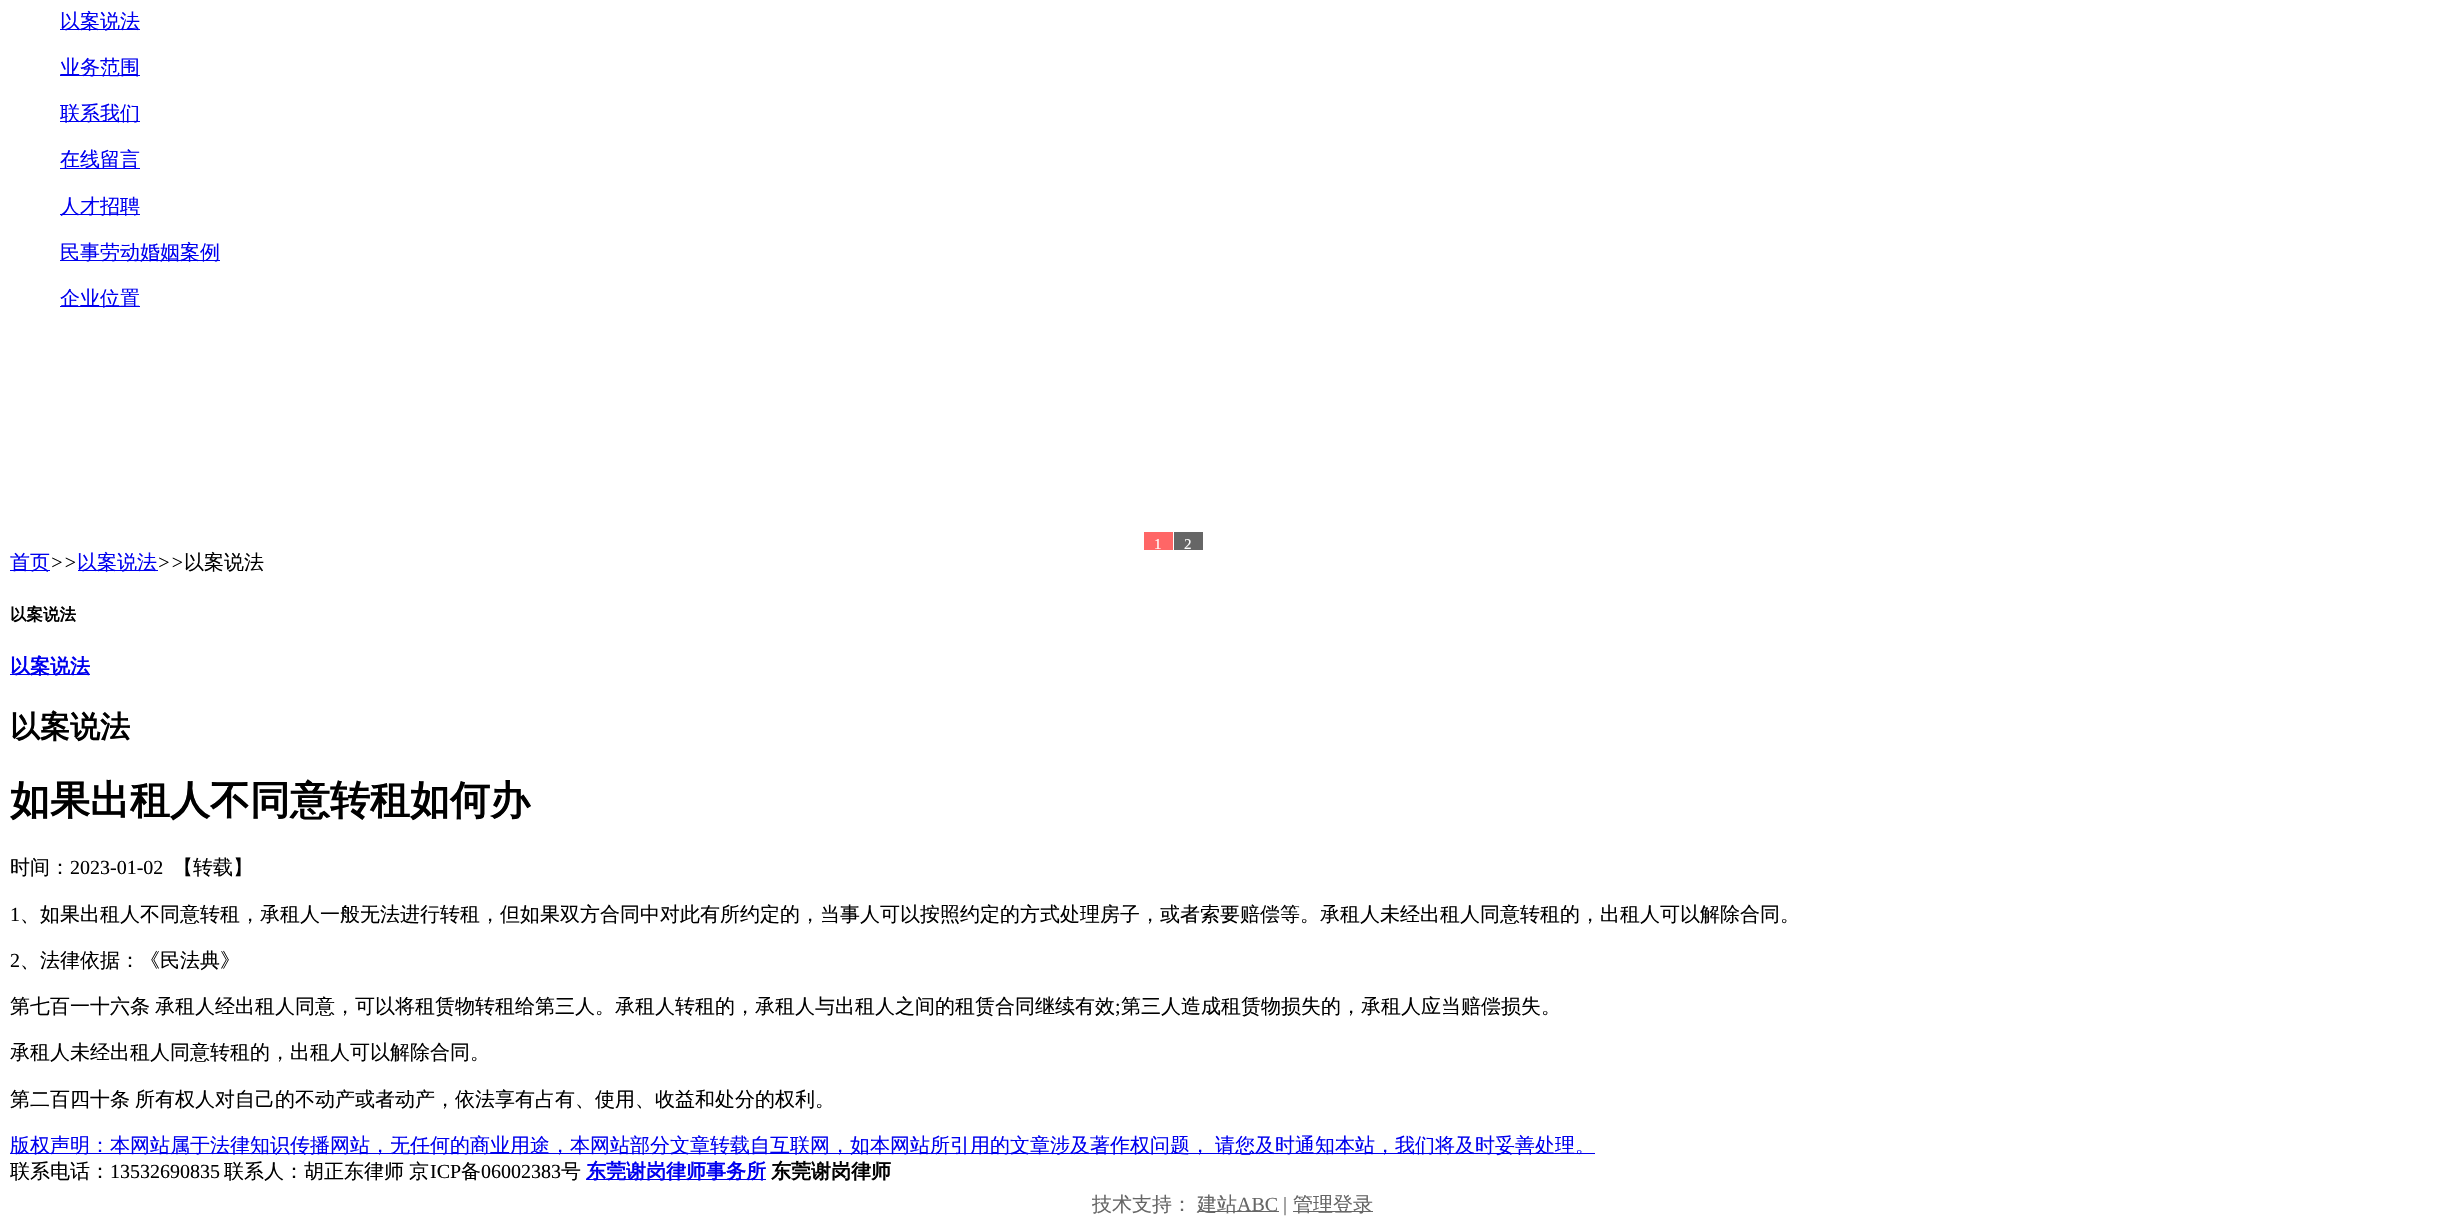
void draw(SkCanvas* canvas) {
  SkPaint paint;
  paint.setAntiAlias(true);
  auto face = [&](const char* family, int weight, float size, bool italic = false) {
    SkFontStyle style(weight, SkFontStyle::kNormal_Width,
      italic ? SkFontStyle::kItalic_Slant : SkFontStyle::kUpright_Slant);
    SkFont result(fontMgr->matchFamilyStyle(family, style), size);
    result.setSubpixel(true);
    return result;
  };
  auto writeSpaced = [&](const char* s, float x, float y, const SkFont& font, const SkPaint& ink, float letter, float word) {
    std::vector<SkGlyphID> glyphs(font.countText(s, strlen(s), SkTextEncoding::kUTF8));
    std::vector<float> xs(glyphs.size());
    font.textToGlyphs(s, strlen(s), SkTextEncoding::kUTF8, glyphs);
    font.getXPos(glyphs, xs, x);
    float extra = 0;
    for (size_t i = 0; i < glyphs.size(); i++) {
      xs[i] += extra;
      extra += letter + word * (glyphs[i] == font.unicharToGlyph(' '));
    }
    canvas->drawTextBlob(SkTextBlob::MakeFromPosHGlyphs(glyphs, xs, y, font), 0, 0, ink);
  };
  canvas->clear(0xffffffff);
  {
    const struct { float x, y, w, h; SkColor color; } items[] = {
      {60, 29, 80, 1, 0xff0000ee},
      {60, 75, 80, 1, 0xff0000ee},
      {60, 121, 80, 1, 0xff0000ee},
      {60, 168, 80, 1, 0xff0000ee},
      {60, 214, 80, 1, 0xff0000ee},
      {60, 260, 160, 1, 0xff0000ee},
      {60, 306, 80, 1, 0xff0000ee},
      {1144, 532, 29, 18, 0xffff6666},
      {1174, 532, 29, 18, 0xff666666},
      {10, 570, 40, 1, 0xff0000ee},
      {78, 570, 80, 1, 0xff0000ee},
      {10, 674, 80, 1, 0xff0000ee},
      {10, 1153, 1585, 1, 0xff0000ee},
      {586, 1179, 180, 1, 0xff0000ee},
      {1198, 1211, 81, 1, 0xff666666},
      {1293, 1211, 80, 1, 0xff666666},
    };
    for (auto [x, y, w, h, color] : items) {
      paint.setColor(color);
      canvas->drawRect(SkRect::MakeXYWH(x, y, w, h), paint);
    }
  }
  auto f0 = face("WenQuanYi Zen Hei", 500, 20);
  paint.setColor(0xff0000ee);
  {
    const struct { const char* s; float x, y; } items[] = {
      {"以案说法", 60, 28},
      {"业务范围", 60, 74},
      {"联系我们", 60, 120},
      {"在线留言", 60, 166},
      {"人才招聘", 60, 213},
      {"民事劳动婚姻案例", 60, 259},
      {"企业位置", 60, 305},
    };
    for (auto [s, x, y] : items) {
      canvas->drawString(s, x, y, f0, paint);
    }
  }
  auto f1 = face("Liberation Serif", 400, 15);
  paint.setColor(0xffffffff);
  canvas->drawString("1", 1154, 549, f1, paint);
  canvas->drawString("2", 1184, 549, f1, paint);
  paint.setColor(0xff0000ee);
  canvas->drawString("首页", 10, 569, f0, paint);
  auto f2 = face("Liberation Serif", 400, 20, true);
  paint.setColor(0xff000000);
  canvas->drawString(">>", 50, 569, f2, paint);
  paint.setColor(0xff0000ee);
  canvas->drawString("以案说法", 77, 569, f0, paint);
  paint.setColor(0xff000000);
  canvas->drawString(">>", 157, 569, f2, paint);
  canvas->drawString("以案说法", 184, 569, f0, paint);
  auto f3 = face("WenQuanYi Zen Hei", 700, 16.5f);
  canvas->drawString("以案说法", 10, 620, f3, paint);
  auto f4 = face("WenQuanYi Zen Hei", 700, 20);
  paint.setColor(0xff0000ee);
  canvas->drawString("以案说法", 10, 673, f4, paint);
  auto f5 = face("WenQuanYi Zen Hei", 700, 30);
  paint.setColor(0xff000000);
  canvas->drawString("以案说法", 10, 737, f5, paint);
  auto f6 = face("WenQuanYi Zen Hei", 700, 40);
  canvas->drawString("如果出租人不同意转租如何办", 10, 814, f6, paint);
  canvas->drawString("时间：", 10, 874, f0, paint);
  auto f7 = face("Liberation Serif", 400, 20);
  canvas->drawString("2023-01-02", 70, 874, f7, paint);
  canvas->drawString("【转载】", 173, 874, f0, paint);
  canvas->drawString("1", 10, 921, f7, paint);
  canvas->drawString("、如果出租人不同意转租，承租人一般无法进行转租，但如果双方合同中对此有所约定的，当事人可以按照约定的方式处理房子，或者索要赔偿等。承租人未经出租人同意转租的，出租人可以解除合同。", 20, 921, f0, paint);
  canvas->drawString("2", 10, 967, f7, paint);
  canvas->drawString("、法律依据：《民法典》", 20, 967, f0, paint);
  writeSpaced("第七百一十六条 承租人经出租人同意，可以将租赁物转租给第三人。承租人转租的，承租人与出租人之间的租赁合同继续有效", 10, 1013, f0, paint, 0, -1);
  canvas->drawString(";", 1115, 1013, f7, paint);
  canvas->drawString("第三人造成租赁物损失的，承租人应当赔偿损失。", 1121, 1013, f0, paint);
  canvas->drawString("承租人未经出租人同意转租的，出租人可以解除合同。", 10, 1059, f0, paint);
  writeSpaced("第二百四十条 所有权人对自己的不动产或者动产，依法享有占有、使用、收益和处分的权利。", 10, 1106, f0, paint, 0, -1);
  paint.setColor(0xff0000ee);
  writeSpaced("版权声明：本网站属于法律知识传播网站，无任何的商业用途，本网站部分文章转载自互联网，如本网站所引用的文章涉及著作权问题， 请您及时通知本站，我们将及时妥善处理。", 10, 1152, f0, paint, 0, -1);
  paint.setColor(0xff000000);
  canvas->drawString("联系电话：", 10, 1178, f0, paint);
  canvas->drawString("13532690835", 110, 1178, f7, paint);
  writeSpaced("联系人：胡正东律师 京", 224, 1178, f0, paint, 0, -1);
  canvas->drawString("ICP", 430, 1178, f7, paint);
  canvas->drawString("备", 461, 1178, f0, paint);
  canvas->drawString("06002383", 481, 1178, f7, paint);
  canvas->drawString("号", 561, 1178, f0, paint);
  paint.setColor(0xff0000ee);
  canvas->drawString("东莞谢岗律师事务所", 586, 1178, f4, paint);
  paint.setColor(0xff000000);
  canvas->drawString("东莞谢岗律师", 771, 1178, f4, paint);
  paint.setColor(0xff666666);
  canvas->drawString("技术支持：", 1092, 1211, f0, paint);
  canvas->drawString("建站", 1197, 1211, f0, paint);
  canvas->drawString("ABC |", 1237, 1211, f7, paint);
  canvas->drawString("管理登录", 1293, 1211, f0, paint);
}
